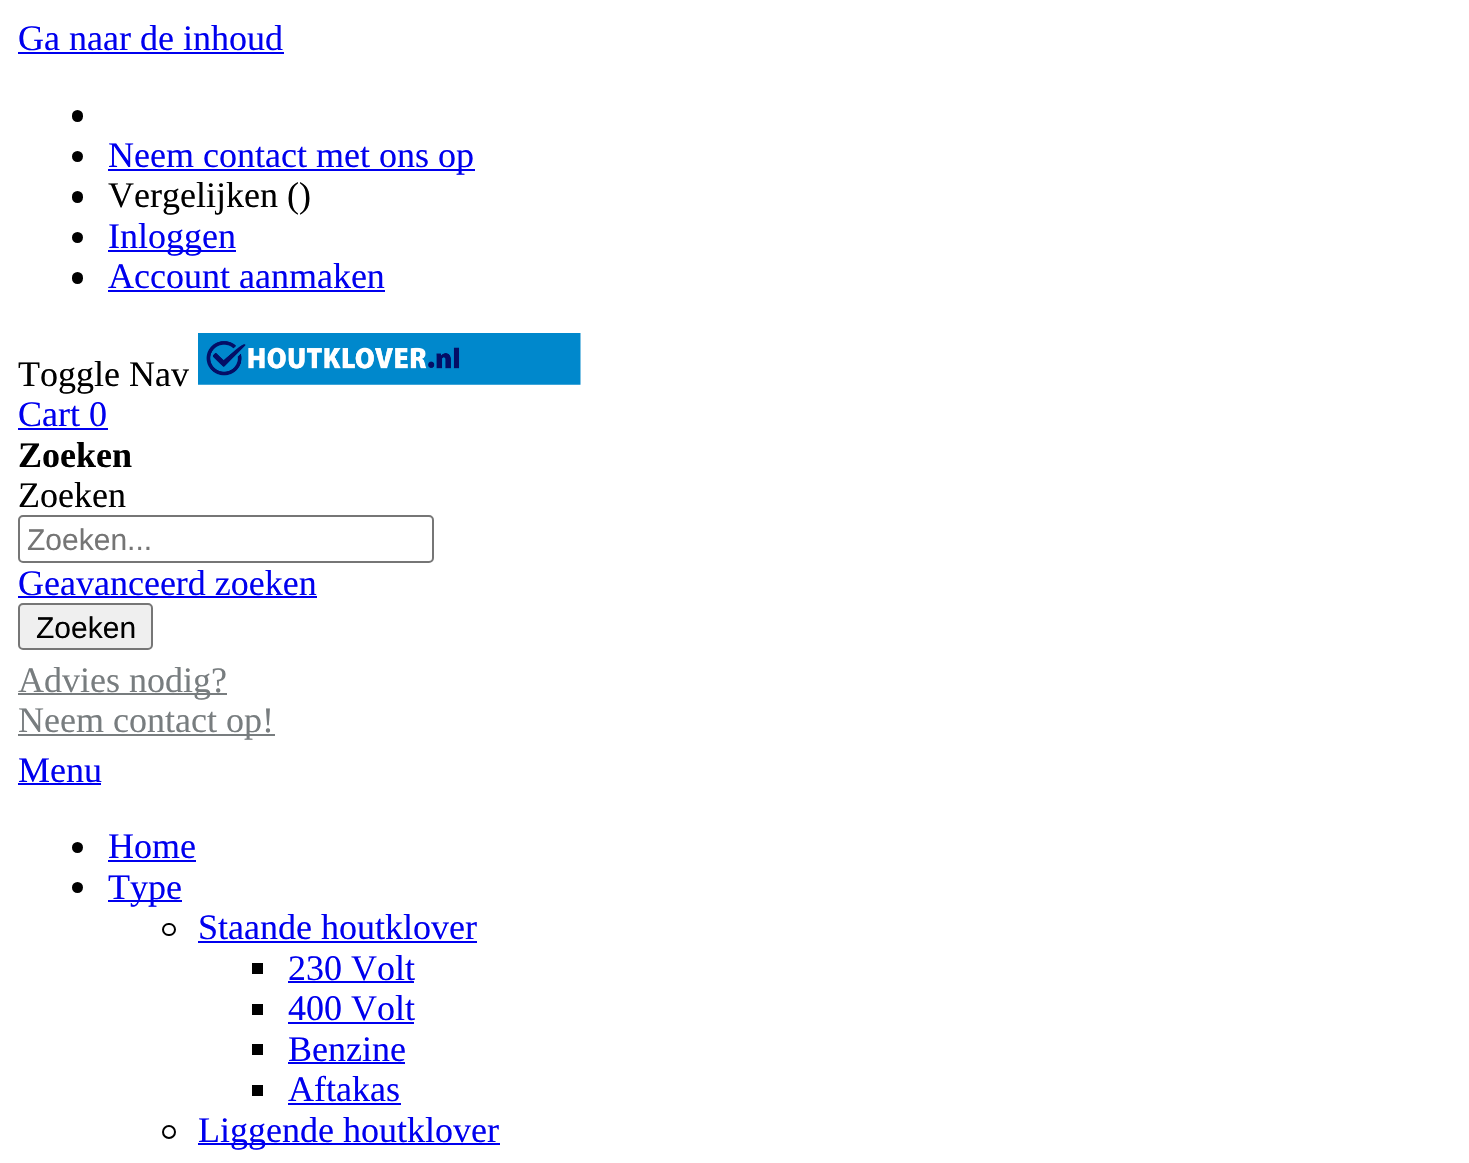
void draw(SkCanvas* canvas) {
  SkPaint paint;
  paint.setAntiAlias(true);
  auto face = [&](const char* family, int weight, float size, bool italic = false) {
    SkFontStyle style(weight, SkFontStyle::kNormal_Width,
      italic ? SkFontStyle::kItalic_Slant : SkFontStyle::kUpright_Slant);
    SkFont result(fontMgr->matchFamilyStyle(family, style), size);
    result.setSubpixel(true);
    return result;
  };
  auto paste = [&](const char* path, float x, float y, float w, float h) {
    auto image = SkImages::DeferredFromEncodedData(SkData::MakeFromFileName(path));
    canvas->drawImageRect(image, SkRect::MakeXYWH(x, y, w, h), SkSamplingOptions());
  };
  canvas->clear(0xffffffff);
  paint.setColor(0xff0000ee);
  canvas->drawRect(SkRect::MakeXYWH(18, 52, 266, 2), paint);
  paint.setColor(0xff000000);
  canvas->drawRoundRect(SkRect::MakeXYWH(72, 110, 11, 12), 5.5f, 5.5f, paint);
  canvas->drawCircle(77.5f, 156.5f, 5.5f, paint);
  paint.setColor(0xff0000ee);
  canvas->drawRect(SkRect::MakeXYWH(108, 169, 367, 2), paint);
  paint.setColor(0xff000000);
  canvas->drawRoundRect(SkRect::MakeXYWH(72, 191, 11, 12), 5.5f, 5.5f, paint);
  canvas->drawCircle(77.5f, 237.5f, 5.5f, paint);
  paint.setColor(0xff0000ee);
  canvas->drawRect(SkRect::MakeXYWH(108, 250, 128, 2), paint);
  paint.setColor(0xff000000);
  canvas->drawRoundRect(SkRect::MakeXYWH(72, 272, 11, 12), 5.5f, 5.5f, paint);
  paint.setColor(0xff0000ee);
  canvas->drawRect(SkRect::MakeXYWH(108, 290, 277, 2), paint);
  paste("img/1.png", 198, 333, 383, 52);
  canvas->drawRect(SkRect::MakeXYWH(18, 428, 90, 2), paint);
  paint.setStroke(true);
  paint.setStrokeWidth(2);
  paint.setColor(0xff767676);
  canvas->drawRoundRect(SkRect::MakeXYWH(19, 516, 414, 46), 4, 4, paint);
  paint.setStroke(false);
  paint.setColor(0xff0000ee);
  canvas->drawRect(SkRect::MakeXYWH(18, 596, 299, 2), paint);
  paint.setColor(0xffefefef);
  canvas->drawRoundRect(SkRect::MakeXYWH(19, 604, 133, 45), 4, 4, paint);
  paint.setStroke(true);
  paint.setColor(0xff767676);
  canvas->drawRoundRect(SkRect::MakeXYWH(19, 604, 133, 45), 4, 4, paint);
  paint.setStroke(false);
  {
    const struct { float x, y, w, h; SkColor color; } items[] = {
      {18, 693, 209, 2, 0xff787d7f},
      {18, 734, 257, 2, 0xff787d7f},
      {18, 783, 83, 2, 0xff0000ee},
    };
    for (auto [x, y, w, h, color] : items) {
      paint.setColor(color);
      canvas->drawRect(SkRect::MakeXYWH(x, y, w, h), paint);
    }
  }
  paint.setColor(0xff000000);
  canvas->drawCircle(77.5f, 847.5f, 5.5f, paint);
  paint.setColor(0xff0000ee);
  canvas->drawRect(SkRect::MakeXYWH(108, 860, 88, 2), paint);
  paint.setColor(0xff000000);
  canvas->drawCircle(77.5f, 887.5f, 5.5f, paint);
  paint.setColor(0xff0000ee);
  canvas->drawRect(SkRect::MakeXYWH(108, 900, 74, 2), paint);
  paint.setStroke(true);
  paint.setColor(0xff000000);
  canvas->drawRoundRect(SkRect::MakeXYWH(163, 924, 12, 11), 5.5f, 5.5f, paint);
  paint.setStroke(false);
  {
    const struct { float x, y, w, h; SkColor color; } items[] = {
      {198, 941, 279, 2, 0xff0000ee},
      {252, 963, 11, 11, 0xff000000},
      {288, 981, 126, 2, 0xff0000ee},
      {252, 1004, 11, 11, 0xff000000},
      {288, 1022, 126, 2, 0xff0000ee},
      {252, 1044, 11, 11, 0xff000000},
      {288, 1062, 117, 2, 0xff0000ee},
      {252, 1085, 11, 11, 0xff000000},
      {288, 1103, 113, 2, 0xff0000ee},
    };
    for (auto [x, y, w, h, color] : items) {
      paint.setColor(color);
      canvas->drawRect(SkRect::MakeXYWH(x, y, w, h), paint);
    }
  }
  paint.setStroke(true);
  paint.setColor(0xff000000);
  canvas->drawCircle(169, 1132, 6, paint);
  paint.setStroke(false);
  paint.setColor(0xff0000ee);
  canvas->drawRect(SkRect::MakeXYWH(198, 1143, 302, 2), paint);
  auto f0 = face("Liberation Serif", 400, 36);
  canvas->drawString("Ga naar de inhoud", 18, 50, f0, paint);
  canvas->drawString("Neem contact met ons op", 108, 167, f0, paint);
  paint.setColor(0xff000000);
  canvas->drawString("Vergelijken ()", 108, 207, f0, paint);
  paint.setColor(0xff0000ee);
  canvas->drawString("Inloggen", 108, 248, f0, paint);
  canvas->drawString("Account aanmaken", 108, 288, f0, paint);
  paint.setColor(0xff000000);
  canvas->drawString("Toggle Nav", 18, 386, f0, paint);
  paint.setColor(0xff0000ee);
  canvas->drawString("Cart 0", 18, 426, f0, paint);
  auto f1 = face("Liberation Serif", 700, 36);
  paint.setColor(0xff000000);
  canvas->drawString("Zoeken", 18, 467, f1, paint);
  canvas->drawString("Zoeken", 18, 507, f0, paint);
  auto f2 = face("Liberation Sans", 400, 30);
  paint.setColor(0xff757575);
  canvas->drawString("Zoeken...", 27, 550, f2, paint);
  paint.setColor(0xff0000ee);
  canvas->drawString("Geavanceerd zoeken", 18, 595, f0, paint);
  paint.setColor(0xff000000);
  canvas->drawString("Zoeken", 36, 638, f2, paint);
  paint.setColor(0xff787d7f);
  canvas->drawString("Advies nodig?", 18, 692, f0, paint);
  canvas->drawString("Neem contact op!", 18, 732, f0, paint);
  paint.setColor(0xff0000ee);
  {
    const struct { const char* s; float x, y; } items[] = {
      {"Menu", 18, 782},
      {"Home", 108, 858},
      {"Type", 108, 899},
      {"Staande houtklover", 198, 939},
      {"230 Volt", 288, 980},
      {"400 Volt", 288, 1020},
      {"Benzine", 288, 1061},
      {"Aftakas", 288, 1101},
      {"Liggende houtklover", 198, 1142},
    };
    for (auto [s, x, y] : items) {
      canvas->drawString(s, x, y, f0, paint);
    }
  }
}
